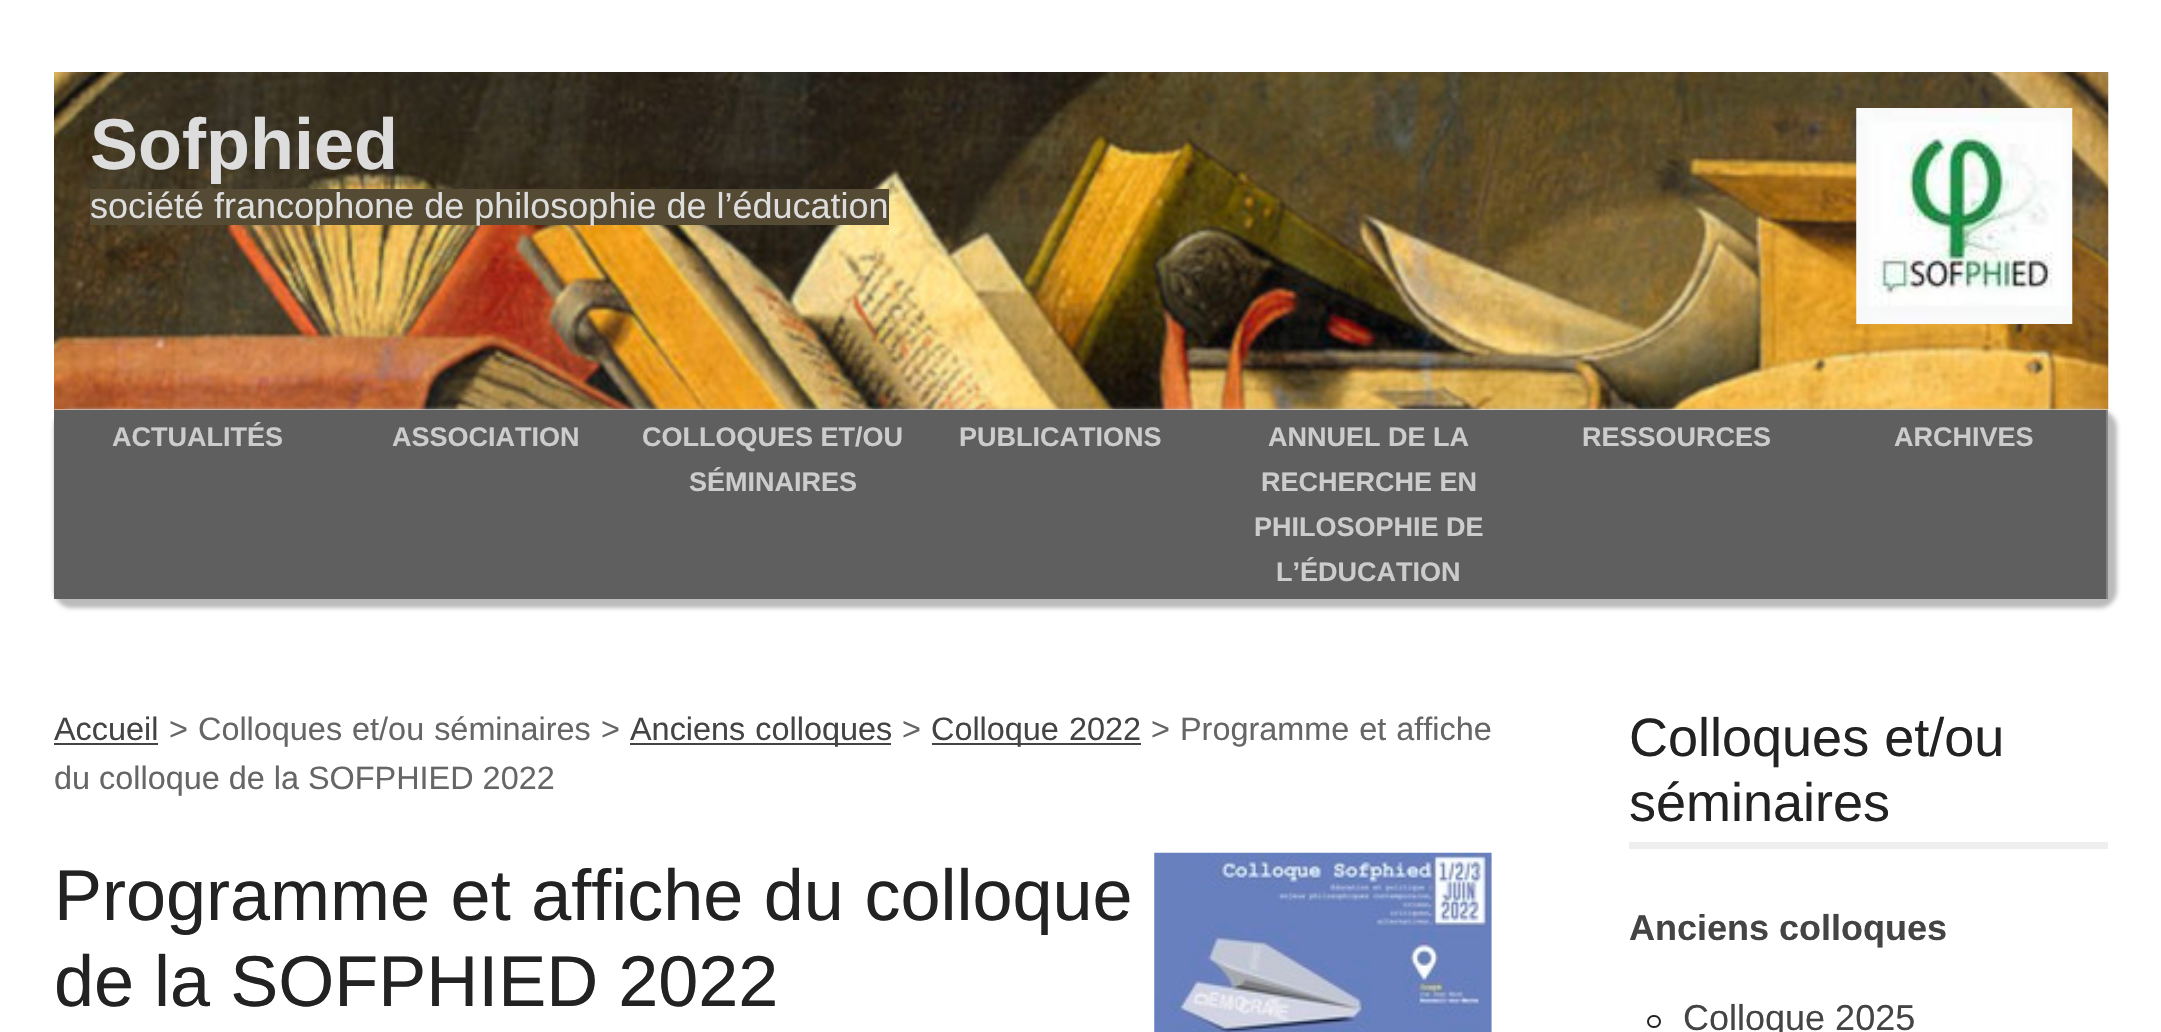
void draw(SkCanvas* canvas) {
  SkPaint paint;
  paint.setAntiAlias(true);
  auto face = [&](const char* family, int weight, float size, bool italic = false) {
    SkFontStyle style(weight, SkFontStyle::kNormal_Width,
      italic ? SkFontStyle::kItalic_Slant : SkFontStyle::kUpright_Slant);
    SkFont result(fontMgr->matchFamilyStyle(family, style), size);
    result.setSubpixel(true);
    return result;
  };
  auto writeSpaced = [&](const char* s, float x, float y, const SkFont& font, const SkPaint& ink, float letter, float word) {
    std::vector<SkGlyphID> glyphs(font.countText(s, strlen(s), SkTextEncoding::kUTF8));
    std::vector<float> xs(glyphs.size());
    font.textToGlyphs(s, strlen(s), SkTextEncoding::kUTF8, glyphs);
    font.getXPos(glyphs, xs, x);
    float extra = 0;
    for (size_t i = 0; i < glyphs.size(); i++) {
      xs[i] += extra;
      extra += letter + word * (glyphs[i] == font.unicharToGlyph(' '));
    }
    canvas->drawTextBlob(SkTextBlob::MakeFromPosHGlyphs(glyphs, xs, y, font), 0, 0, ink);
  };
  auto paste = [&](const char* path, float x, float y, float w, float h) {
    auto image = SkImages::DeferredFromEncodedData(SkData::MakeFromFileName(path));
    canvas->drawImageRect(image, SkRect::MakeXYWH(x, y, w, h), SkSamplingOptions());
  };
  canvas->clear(0xffffffff);
  paste("img/1.png", 54, 72, 2055, 338);
  paste("img/2.png", 1856, 108, 217, 216);
  paint.setColor(0xff554b35);
  canvas->drawRect(SkRect::MakeXYWH(90, 189, 799, 36), paint);
  paint.setColor(0xffbbbbbb);
  paint.setMaskFilter(SkMaskFilter::MakeBlur(kNormal_SkBlurStyle, 2));
  canvas->drawRoundRect(SkRect::MakeXYWH(54, 410, 2063, 198), 18, 18, paint);
  paint.setMaskFilter(nullptr);
  {
    const struct { float x, y, w, h; SkColor color; } items[] = {
      {54, 410, 2052, 189, 0xff5f5f5f},
      {2106, 410, 2, 189, 0xff858585},
      {54, 743, 104, 2, 0xff444444},
      {630, 743, 261, 2, 0xff444444},
      {932, 743, 209, 2, 0xff444444},
    };
    for (auto [x, y, w, h, color] : items) {
      paint.setColor(color);
      canvas->drawRect(SkRect::MakeXYWH(x, y, w, h), paint);
    }
  }
  paste("img/3.png", 1154, 852, 338, 180);
  paint.setColor(0xffeeeeee);
  canvas->drawRect(SkRect::MakeXYWH(1629, 842, 479, 7), paint);
  paint.setStroke(true);
  paint.setStrokeWidth(2);
  paint.setColor(0xff222222);
  canvas->drawRoundRect(SkRect::MakeXYWH(1648, 1016, 12, 11), 5.5f, 5.5f, paint);
  auto f0 = face("Liberation Sans", 700, 72);
  paint.setStroke(false);
  paint.setColor(0xffdddddd);
  canvas->drawString("Sofphied", 90, 169, f0, paint);
  auto f1 = face("Liberation Sans", 400, 36);
  canvas->drawString("société francophone de philosophie de l’éducation", 90, 218, f1, paint);
  auto f2 = face("Liberation Sans", 700, 27);
  paint.setColor(0xffcccccc);
  {
    const struct { const char* s; float x, y; } items[] = {
      {"ACTUALITÉS", 112, 446},
      {"ASSOCIATION", 392, 446},
      {"COLLOQUES ET/OU", 642, 446},
      {"SÉMINAIRES", 689, 491},
      {"PUBLICATIONS", 959, 446},
      {"ANNUEL DE LA", 1268, 446},
      {"RECHERCHE EN", 1261, 491},
      {"PHILOSOPHIE DE", 1254, 536},
      {"L’ÉDUCATION", 1276, 581},
      {"RESSOURCES", 1582, 446},
      {"ARCHIVES", 1894, 446},
    };
    for (auto [s, x, y] : items) {
      canvas->drawString(s, x, y, f2, paint);
    }
  }
  auto f3 = face("Liberation Sans", 400, 32.4f);
  paint.setColor(0xff444444);
  canvas->drawString("Accueil", 54, 740, f3, paint);
  paint.setColor(0xff666666);
  canvas->drawString(">", 169, 740, f3, paint);
  writeSpaced("Colloques et/ou séminaires", 198, 740, f3, paint, 0, 1);
  canvas->drawString(">", 601, 740, f3, paint);
  paint.setColor(0xff444444);
  writeSpaced("Anciens colloques", 630, 740, f3, paint, 0, 1);
  paint.setColor(0xff666666);
  canvas->drawString(">", 902, 740, f3, paint);
  paint.setColor(0xff444444);
  writeSpaced("Colloque 2022", 931, 740, f3, paint, 0, 1);
  paint.setColor(0xff666666);
  canvas->drawString(">", 1151, 740, f3, paint);
  writeSpaced("Programme et affiche", 1180, 740, f3, paint, 0, 1);
  canvas->drawString("du colloque de la SOFPHIED 2022", 54, 789, f3, paint);
  auto f4 = face("Liberation Sans", 400, 72);
  paint.setColor(0xff222222);
  writeSpaced("Programme et affiche du colloque", 54, 920, f4, paint, 0, 0.5f);
  canvas->drawString("de la SOFPHIED 2022", 54, 1006, f4, paint);
  auto f5 = face("Liberation Sans", 400, 54);
  canvas->drawString("Colloques et/ou", 1629, 756, f5, paint);
  canvas->drawString("séminaires", 1629, 821, f5, paint);
  auto f6 = face("Liberation Sans", 700, 36);
  paint.setColor(0xff444444);
  canvas->drawString("Anciens colloques", 1629, 940, f6, paint);
  canvas->drawString("Colloque 2025", 1683, 1030, f1, paint);
}
